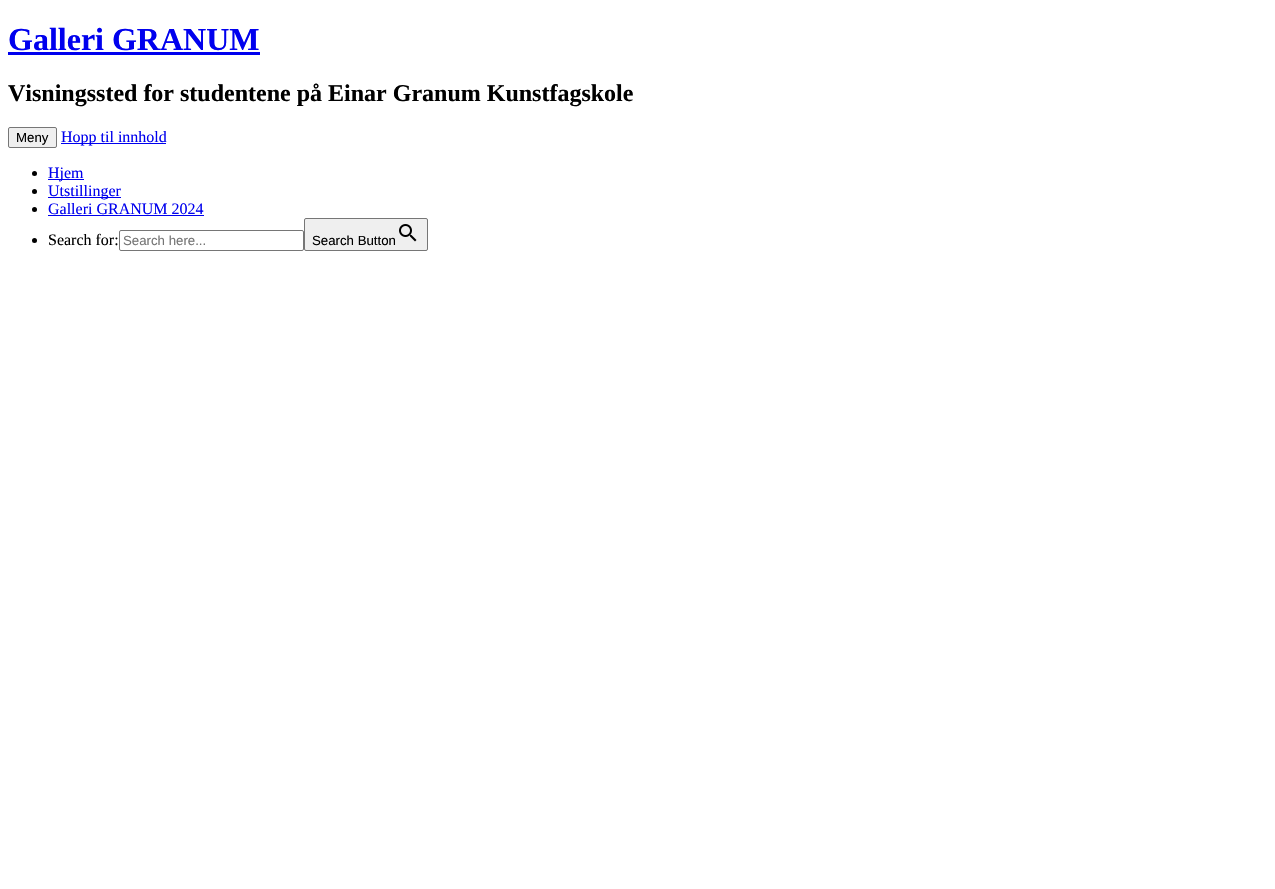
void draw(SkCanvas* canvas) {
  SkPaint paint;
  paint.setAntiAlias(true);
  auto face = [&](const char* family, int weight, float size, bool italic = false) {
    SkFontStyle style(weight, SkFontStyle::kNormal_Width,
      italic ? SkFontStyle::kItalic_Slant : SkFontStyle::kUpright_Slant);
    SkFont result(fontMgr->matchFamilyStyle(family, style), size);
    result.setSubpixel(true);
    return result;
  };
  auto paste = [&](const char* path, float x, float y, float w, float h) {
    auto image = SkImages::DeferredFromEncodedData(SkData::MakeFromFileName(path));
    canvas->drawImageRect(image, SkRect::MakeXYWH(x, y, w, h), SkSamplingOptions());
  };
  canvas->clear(0xffffffff);
  paint.setColor(0xff0000ee);
  canvas->drawRect(SkRect::MakeXYWH(8, 52, 252, 3), paint);
  paint.setColor(0xffefefef);
  canvas->drawRoundRect(SkRect::MakeXYWH(8.5f, 127.5f, 48, 20), 1.5f, 1.5f, paint);
  paint.setStroke(true);
  paint.setStrokeWidth(1);
  paint.setColor(0xff767676);
  canvas->drawRoundRect(SkRect::MakeXYWH(8.5f, 127.5f, 48, 20), 1.5f, 1.5f, paint);
  paint.setStroke(false);
  paint.setColor(0xff0000ee);
  canvas->drawRect(SkRect::MakeXYWH(61, 143, 105, 1), paint);
  paint.setColor(0xff000000);
  canvas->drawCircle(34.5f, 173.5f, 2.5f, paint);
  paint.setColor(0xff0000ee);
  canvas->drawRect(SkRect::MakeXYWH(48, 179, 36, 1), paint);
  paint.setColor(0xff000000);
  canvas->drawCircle(34.5f, 191.5f, 2.5f, paint);
  paint.setColor(0xff0000ee);
  canvas->drawRect(SkRect::MakeXYWH(48, 197, 73, 1), paint);
  paint.setColor(0xff000000);
  canvas->drawCircle(34.5f, 209.5f, 2.5f, paint);
  paint.setColor(0xff0000ee);
  canvas->drawRect(SkRect::MakeXYWH(48, 215, 156, 1), paint);
  paint.setColor(0xff000000);
  canvas->drawCircle(34.5f, 240.5f, 2.5f, paint);
  paint.setStroke(true);
  paint.setColor(0xff767676);
  canvas->drawRoundRect(SkRect::MakeXYWH(119.5f, 230.5f, 184, 20), 1.5f, 1.5f, paint);
  paint.setStroke(false);
  paint.setColor(0xffefefef);
  canvas->drawRoundRect(SkRect::MakeXYWH(304.5f, 218.5f, 123, 32), 1.5f, 1.5f, paint);
  paint.setStroke(true);
  paint.setColor(0xff767676);
  canvas->drawRoundRect(SkRect::MakeXYWH(304.5f, 218.5f, 123, 32), 1.5f, 1.5f, paint);
  paste("img/1.png", 399, 224, 18, 18);
  auto f0 = face("Liberation Serif", 700, 32);
  paint.setStroke(false);
  paint.setColor(0xff0000ee);
  canvas->drawString("Galleri GRANUM", 8, 50, f0, paint);
  auto f1 = face("Liberation Serif", 700, 24);
  paint.setColor(0xff000000);
  canvas->drawString("Visningssted for studentene på Einar Granum Kunstfagskole", 8, 101, f1, paint);
  auto f2 = face("Liberation Sans", 400, 13.25f);
  canvas->drawString("Meny", 16, 142, f2, paint);
  auto f3 = face("Liberation Serif", 400, 16);
  paint.setColor(0xff0000ee);
  {
    const struct { const char* s; float x, y; } items[] = {
      {"Hopp til innhold", 61, 142},
      {"Hjem", 48, 178},
      {"Utstillinger", 48, 196},
      {"Galleri GRANUM 2024", 48, 214},
    };
    for (auto [s, x, y] : items) {
      canvas->drawString(s, x, y, f3, paint);
    }
  }
  paint.setColor(0xff000000);
  canvas->drawString("Search for:", 48, 245, f3, paint);
  paint.setColor(0xff757575);
  canvas->drawString("Search here...", 123, 245, f2, paint);
  paint.setColor(0xff000000);
  canvas->drawString("Search Button", 312, 245, f2, paint);
}
